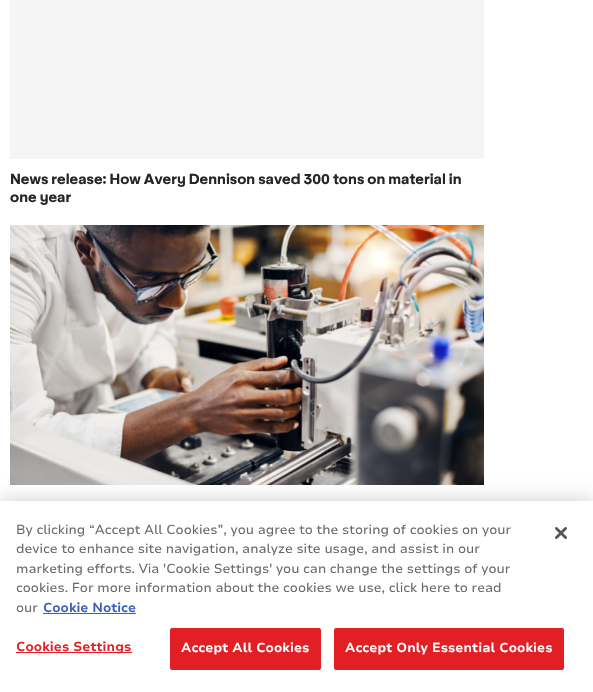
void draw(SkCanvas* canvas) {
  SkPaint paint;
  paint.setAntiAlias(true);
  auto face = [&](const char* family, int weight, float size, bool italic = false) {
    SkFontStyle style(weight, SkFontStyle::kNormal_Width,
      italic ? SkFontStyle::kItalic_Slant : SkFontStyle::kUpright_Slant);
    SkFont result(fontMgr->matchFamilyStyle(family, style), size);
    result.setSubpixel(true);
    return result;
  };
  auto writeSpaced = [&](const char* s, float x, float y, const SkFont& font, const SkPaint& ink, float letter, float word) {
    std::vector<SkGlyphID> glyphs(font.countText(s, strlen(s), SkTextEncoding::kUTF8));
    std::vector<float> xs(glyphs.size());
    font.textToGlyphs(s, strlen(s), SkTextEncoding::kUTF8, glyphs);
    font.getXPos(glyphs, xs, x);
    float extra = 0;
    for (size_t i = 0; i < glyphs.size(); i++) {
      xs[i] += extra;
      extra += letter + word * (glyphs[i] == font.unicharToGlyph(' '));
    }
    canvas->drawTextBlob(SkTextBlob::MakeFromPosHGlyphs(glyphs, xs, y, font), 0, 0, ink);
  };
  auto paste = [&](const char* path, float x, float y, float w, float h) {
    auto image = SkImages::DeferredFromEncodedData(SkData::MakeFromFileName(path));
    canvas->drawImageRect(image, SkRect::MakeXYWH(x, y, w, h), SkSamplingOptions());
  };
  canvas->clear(0xffffffff);
  paint.setColor(0xfff5f5f5);
  canvas->drawRect(SkRect::MakeXYWH(10, 0, 474, 159), paint);
  paste("img/1.png", 10, 225, 474, 260);
  paint.setColor(0x33000000);
  paint.setMaskFilter(SkMaskFilter::MakeBlur(kNormal_SkBlurStyle, 9));
  canvas->drawRect(SkRect::MakeXYWH(0, 501, 593, 191), paint);
  paint.setMaskFilter(nullptr);
  {
    const struct { float x, y, w, h; SkColor color; } items[] = {
      {0, 501, 593, 191, 0xffffffff},
      {43, 613, 93, 1, 0xff3860be},
      {16, 652, 116, 1, 0xffe31f26},
    };
    for (auto [x, y, w, h, color] : items) {
      paint.setColor(color);
      canvas->drawRect(SkRect::MakeXYWH(x, y, w, h), paint);
    }
  }
  canvas->drawRoundRect(SkRect::MakeXYWH(170.5f, 628.5f, 150, 41), 1.5f, 1.5f, paint);
  paint.setStroke(true);
  paint.setStrokeWidth(1);
  canvas->drawRoundRect(SkRect::MakeXYWH(170.5f, 628.5f, 150, 41), 1.5f, 1.5f, paint);
  paint.setStroke(false);
  canvas->drawRoundRect(SkRect::MakeXYWH(334.5f, 628.5f, 229, 41), 1.5f, 1.5f, paint);
  paint.setStroke(true);
  canvas->drawRoundRect(SkRect::MakeXYWH(334.5f, 628.5f, 229, 41), 1.5f, 1.5f, paint);
  paste("img/2.png", 555, 527, 12, 12);
  auto f0 = face("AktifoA", 700, 14);
  paint.setStroke(false);
  paint.setColor(0xff252525);
  canvas->drawString("News release: How Avery Dennison saved 300 tons on material in", 10, 184, f0, paint);
  canvas->drawString("one year", 10, 202, f0, paint);
  auto f1 = face("Nunito Sans", 400, 13);
  paint.setColor(0xff696969);
  {
    const struct { const char* s; float x, y; } items[] = {
      {"By clicking “Accept All Cookies”, you agree to the storing of cookies on your", 16, 534},
      {"device to enhance site navigation, analyze site usage, and assist in our", 16, 553},
      {"marketing efforts. Via 'Cookie Settings' you can change the settings of your", 16, 573},
      {"cookies. For more information about the cookies we use, click here to read", 16, 592},
      {"our", 16, 612},
    };
    for (auto [s, x, y] : items) {
      canvas->drawString(s, x, y, f1, paint);
    }
  }
  auto f2 = face("Nunito Sans", 700, 13);
  paint.setColor(0xff3860be);
  canvas->drawString("Cookie Notice", 43, 612, f2, paint);
  paint.setColor(0xffe31f26);
  writeSpaced("Cookies Settings", 16, 651, f2, paint, 0.1f, 0);
  paint.setColor(0xffffffff);
  writeSpaced("Accept All Cookies", 181, 652, f2, paint, 0.1f, 0);
  writeSpaced("Accept Only Essential Cookies", 345, 652, f2, paint, 0.1f, 0);
}
